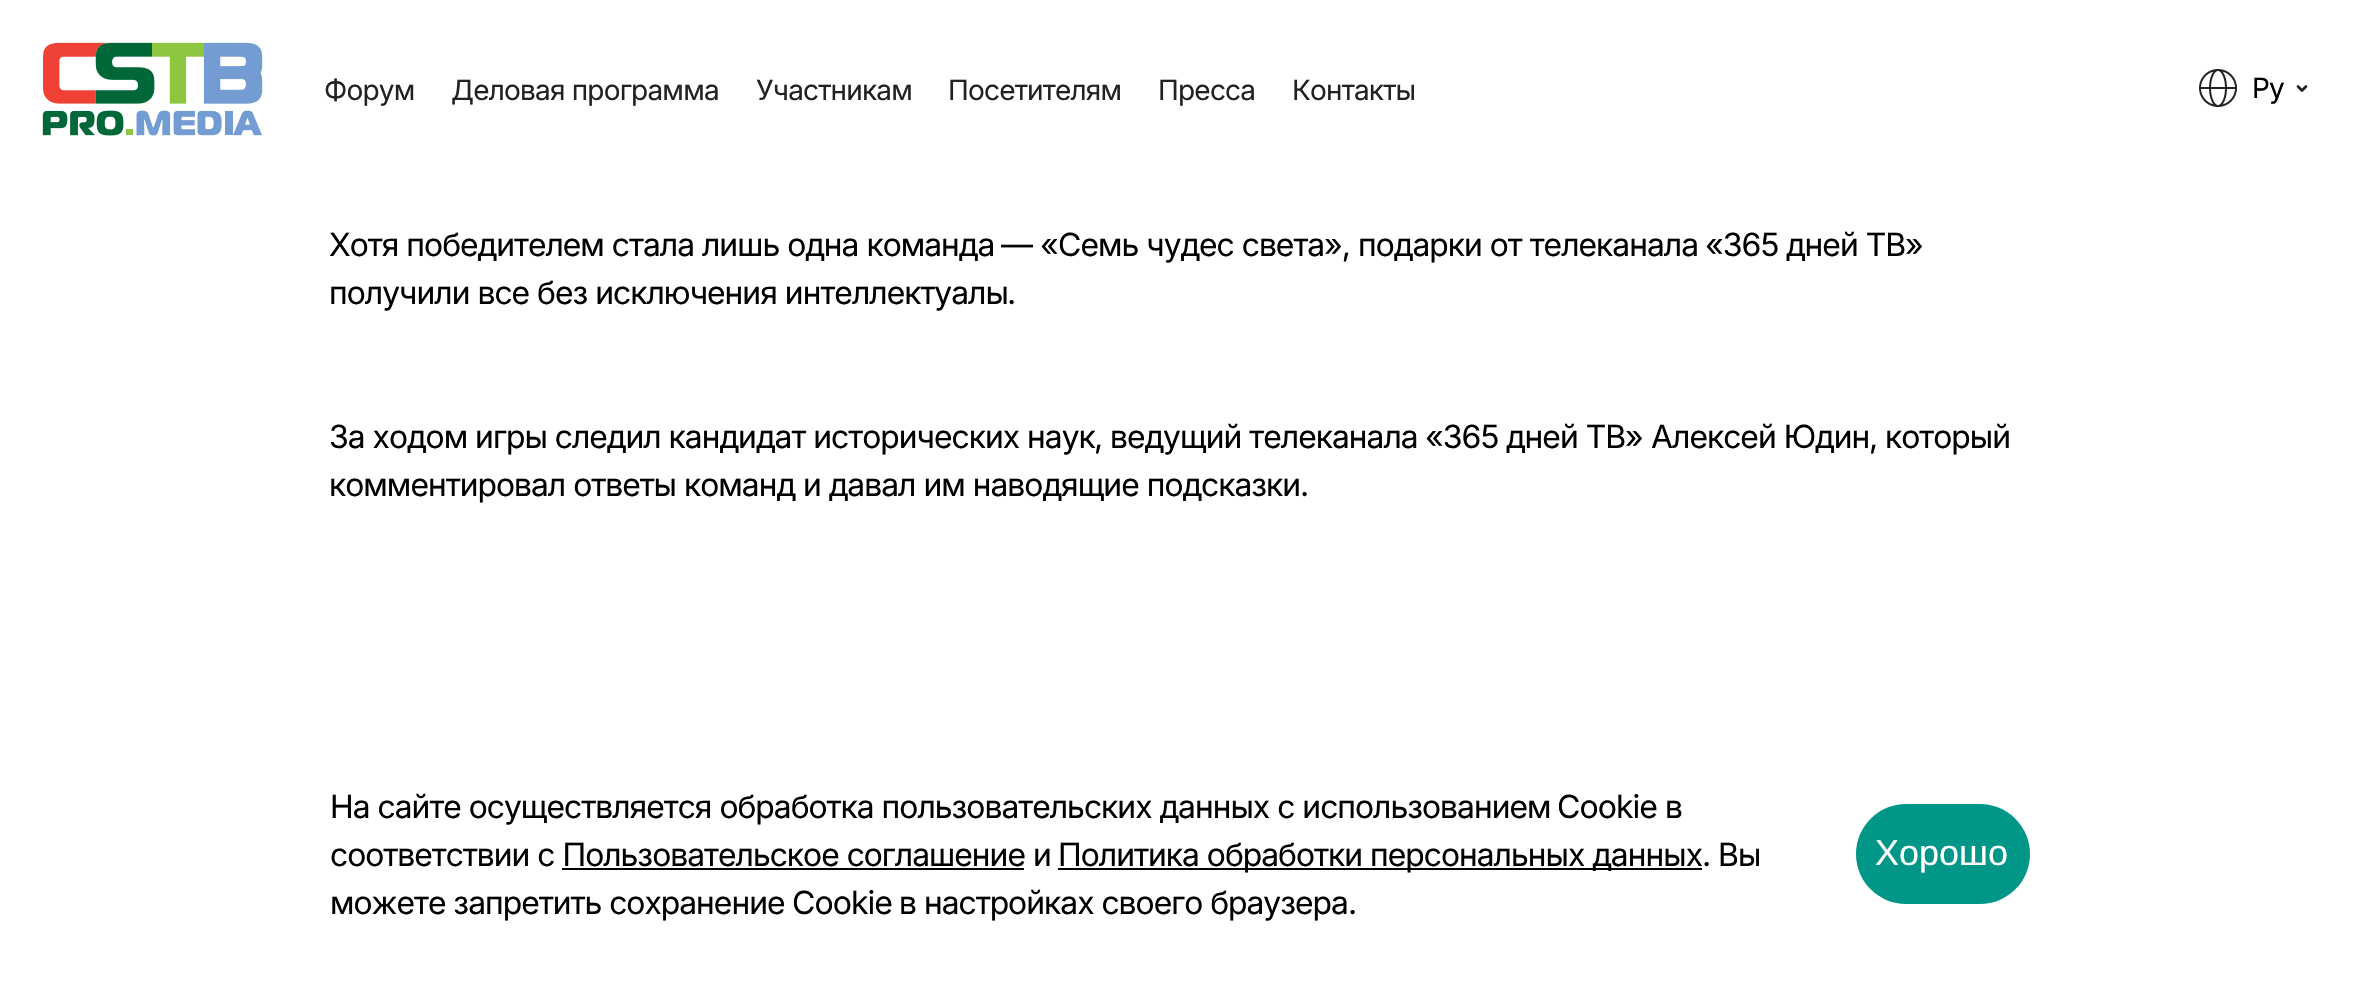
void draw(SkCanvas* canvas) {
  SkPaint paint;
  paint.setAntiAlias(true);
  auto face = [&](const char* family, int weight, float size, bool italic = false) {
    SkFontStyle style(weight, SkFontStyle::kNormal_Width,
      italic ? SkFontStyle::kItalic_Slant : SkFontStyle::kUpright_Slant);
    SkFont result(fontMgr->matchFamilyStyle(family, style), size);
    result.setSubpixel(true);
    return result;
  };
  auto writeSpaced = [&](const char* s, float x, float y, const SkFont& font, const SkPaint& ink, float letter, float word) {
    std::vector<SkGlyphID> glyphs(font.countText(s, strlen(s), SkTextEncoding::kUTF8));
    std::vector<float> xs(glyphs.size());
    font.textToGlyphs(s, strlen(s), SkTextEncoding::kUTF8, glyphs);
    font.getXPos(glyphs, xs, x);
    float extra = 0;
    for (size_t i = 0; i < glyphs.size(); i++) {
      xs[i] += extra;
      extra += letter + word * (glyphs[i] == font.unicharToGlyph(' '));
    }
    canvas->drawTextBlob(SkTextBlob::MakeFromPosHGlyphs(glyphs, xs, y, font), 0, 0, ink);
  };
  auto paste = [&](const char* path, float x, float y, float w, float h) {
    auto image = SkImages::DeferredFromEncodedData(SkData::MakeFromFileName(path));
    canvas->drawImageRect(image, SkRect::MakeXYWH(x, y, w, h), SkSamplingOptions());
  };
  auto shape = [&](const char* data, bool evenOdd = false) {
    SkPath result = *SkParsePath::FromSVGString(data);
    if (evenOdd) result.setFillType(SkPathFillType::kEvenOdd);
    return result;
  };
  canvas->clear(0xffffffff);
  paste("img/1.png", 42, 42, 221, 94);
  paste("img/2.png", 2199, 69, 38, 38);
  paint.setStroke(true);
  paint.setStrokeWidth(2.7f);
  paint.setStrokeCap(SkPaint::kRound_Cap);
  paint.setStrokeJoin(SkPaint::kRound_Join);
  paint.setColor(0xff222222);
  canvas->drawPath(shape("M2306 86.5L2302 90.5L2298 86.5"), paint);
  paint.setStroke(false);
  paint.setColor(0xff000000);
  canvas->drawRect(SkRect::MakeXYWH(1058, 868, 644, 2), paint);
  canvas->drawRect(SkRect::MakeXYWH(562, 868, 462, 2), paint);
  paint.setColor(0xff009688);
  canvas->drawRoundRect(SkRect::MakeXYWH(1856, 804, 174, 100), 50, 50, paint);
  auto f0 = face("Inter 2", 400, 28);
  paint.setColor(0xff222222);
  {
    const struct { const char* s; float x, y; } items[] = {
      {"Форум", 324, 100},
      {"Деловая программа", 451, 100},
      {"Участникам", 756, 100},
      {"Посетителям", 948, 100},
      {"Пресса", 1158, 100},
      {"Контакты", 1292, 100},
    };
    for (auto [s, x, y] : items) {
      writeSpaced(s, x, y, f0, paint, -0.8f, 0);
    }
  }
  paint.setColor(0xff000000);
  writeSpaced("Ру", 2252, 98, f0, paint, -0.8f, 0);
  auto f1 = face("Inter", 400, 32);
  writeSpaced("Хотя победителем стала лишь одна команда", 329, 256, f1, paint, -0.95f, 0);
  auto f2 = face("Inter 2", 400, 32);
  writeSpaced("— «", 1001, 256, f2, paint, -0.95f, 0);
  writeSpaced("Семь чудес света", 1058, 256, f1, paint, -0.95f, 0);
  writeSpaced("»,", 1324, 256, f2, paint, -0.95f, 0);
  writeSpaced("подарки от телеканала", 1358, 256, f1, paint, -0.95f, 0);
  writeSpaced("«365", 1705, 256, f2, paint, -0.95f, 0);
  writeSpaced("дней ТВ", 1786, 256, f1, paint, -0.95f, 0);
  writeSpaced("»", 1905, 256, f2, paint, -0.95f, 0);
  writeSpaced("получили все без исключения интеллектуалы", 329, 304, f1, paint, -0.95f, 0);
  writeSpaced(".", 1007, 304, f2, paint, -0.95f, 0);
  writeSpaced("За ходом игры следил кандидат исторических наук", 329, 448, f1, paint, -0.95f, 0);
  writeSpaced("ведущий телеканала", 1110, 448, f1, paint, -0.95f, 0);
  writeSpaced("«365", 1425, 448, f2, paint, -0.95f, 0);
  writeSpaced("дней ТВ", 1506, 448, f1, paint, -0.95f, 0);
  writeSpaced("»", 1625, 448, f2, paint, -0.95f, 0);
  writeSpaced("Алексей Юдин", 1651, 448, f1, paint, -0.95f, 0);
  writeSpaced("который", 1885, 448, f1, paint, -0.95f, 0);
  writeSpaced(",", 1094, 448, f2, paint, -0.95f, 0);
  writeSpaced(",", 1869, 448, f2, paint, -0.95f, 0);
  writeSpaced("комментировал ответы команд и давал им наводящие подсказки", 329, 496, f1, paint, -0.95f, 0);
  writeSpaced(".", 1300, 496, f2, paint, -0.95f, 0);
  writeSpaced("На сайте осуществляется обработка пользовательских данных с использованием", 330, 818, f1, paint, -0.95f, 0);
  writeSpaced("Cookie", 1557, 818, f2, paint, -0.95f, 0);
  {
    const struct { const char* s; float x, y; } items[] = {
      {"в", 1665, 818},
      {"соответствии с Пользовательское соглашение и", 330, 866},
      {"Политика обработки персональных данных", 1058, 866},
    };
    for (auto [s, x, y] : items) {
      writeSpaced(s, x, y, f1, paint, -0.95f, 0);
    }
  }
  writeSpaced(".", 1702, 866, f2, paint, -0.95f, 0);
  writeSpaced("Вы", 1718, 866, f1, paint, -0.95f, 0);
  writeSpaced("можете запретить сохранение", 330, 914, f1, paint, -0.95f, 0);
  writeSpaced("Cookie", 792, 914, f2, paint, -0.95f, 0);
  writeSpaced("в настройках своего браузера", 899, 914, f1, paint, -0.95f, 0);
  writeSpaced(".", 1348, 914, f2, paint, -0.95f, 0);
  auto f3 = face("Liberation Sans", 400, 36);
  paint.setColor(0xffffffff);
  canvas->drawString("Хорошо", 1875, 865, f3, paint);
}
